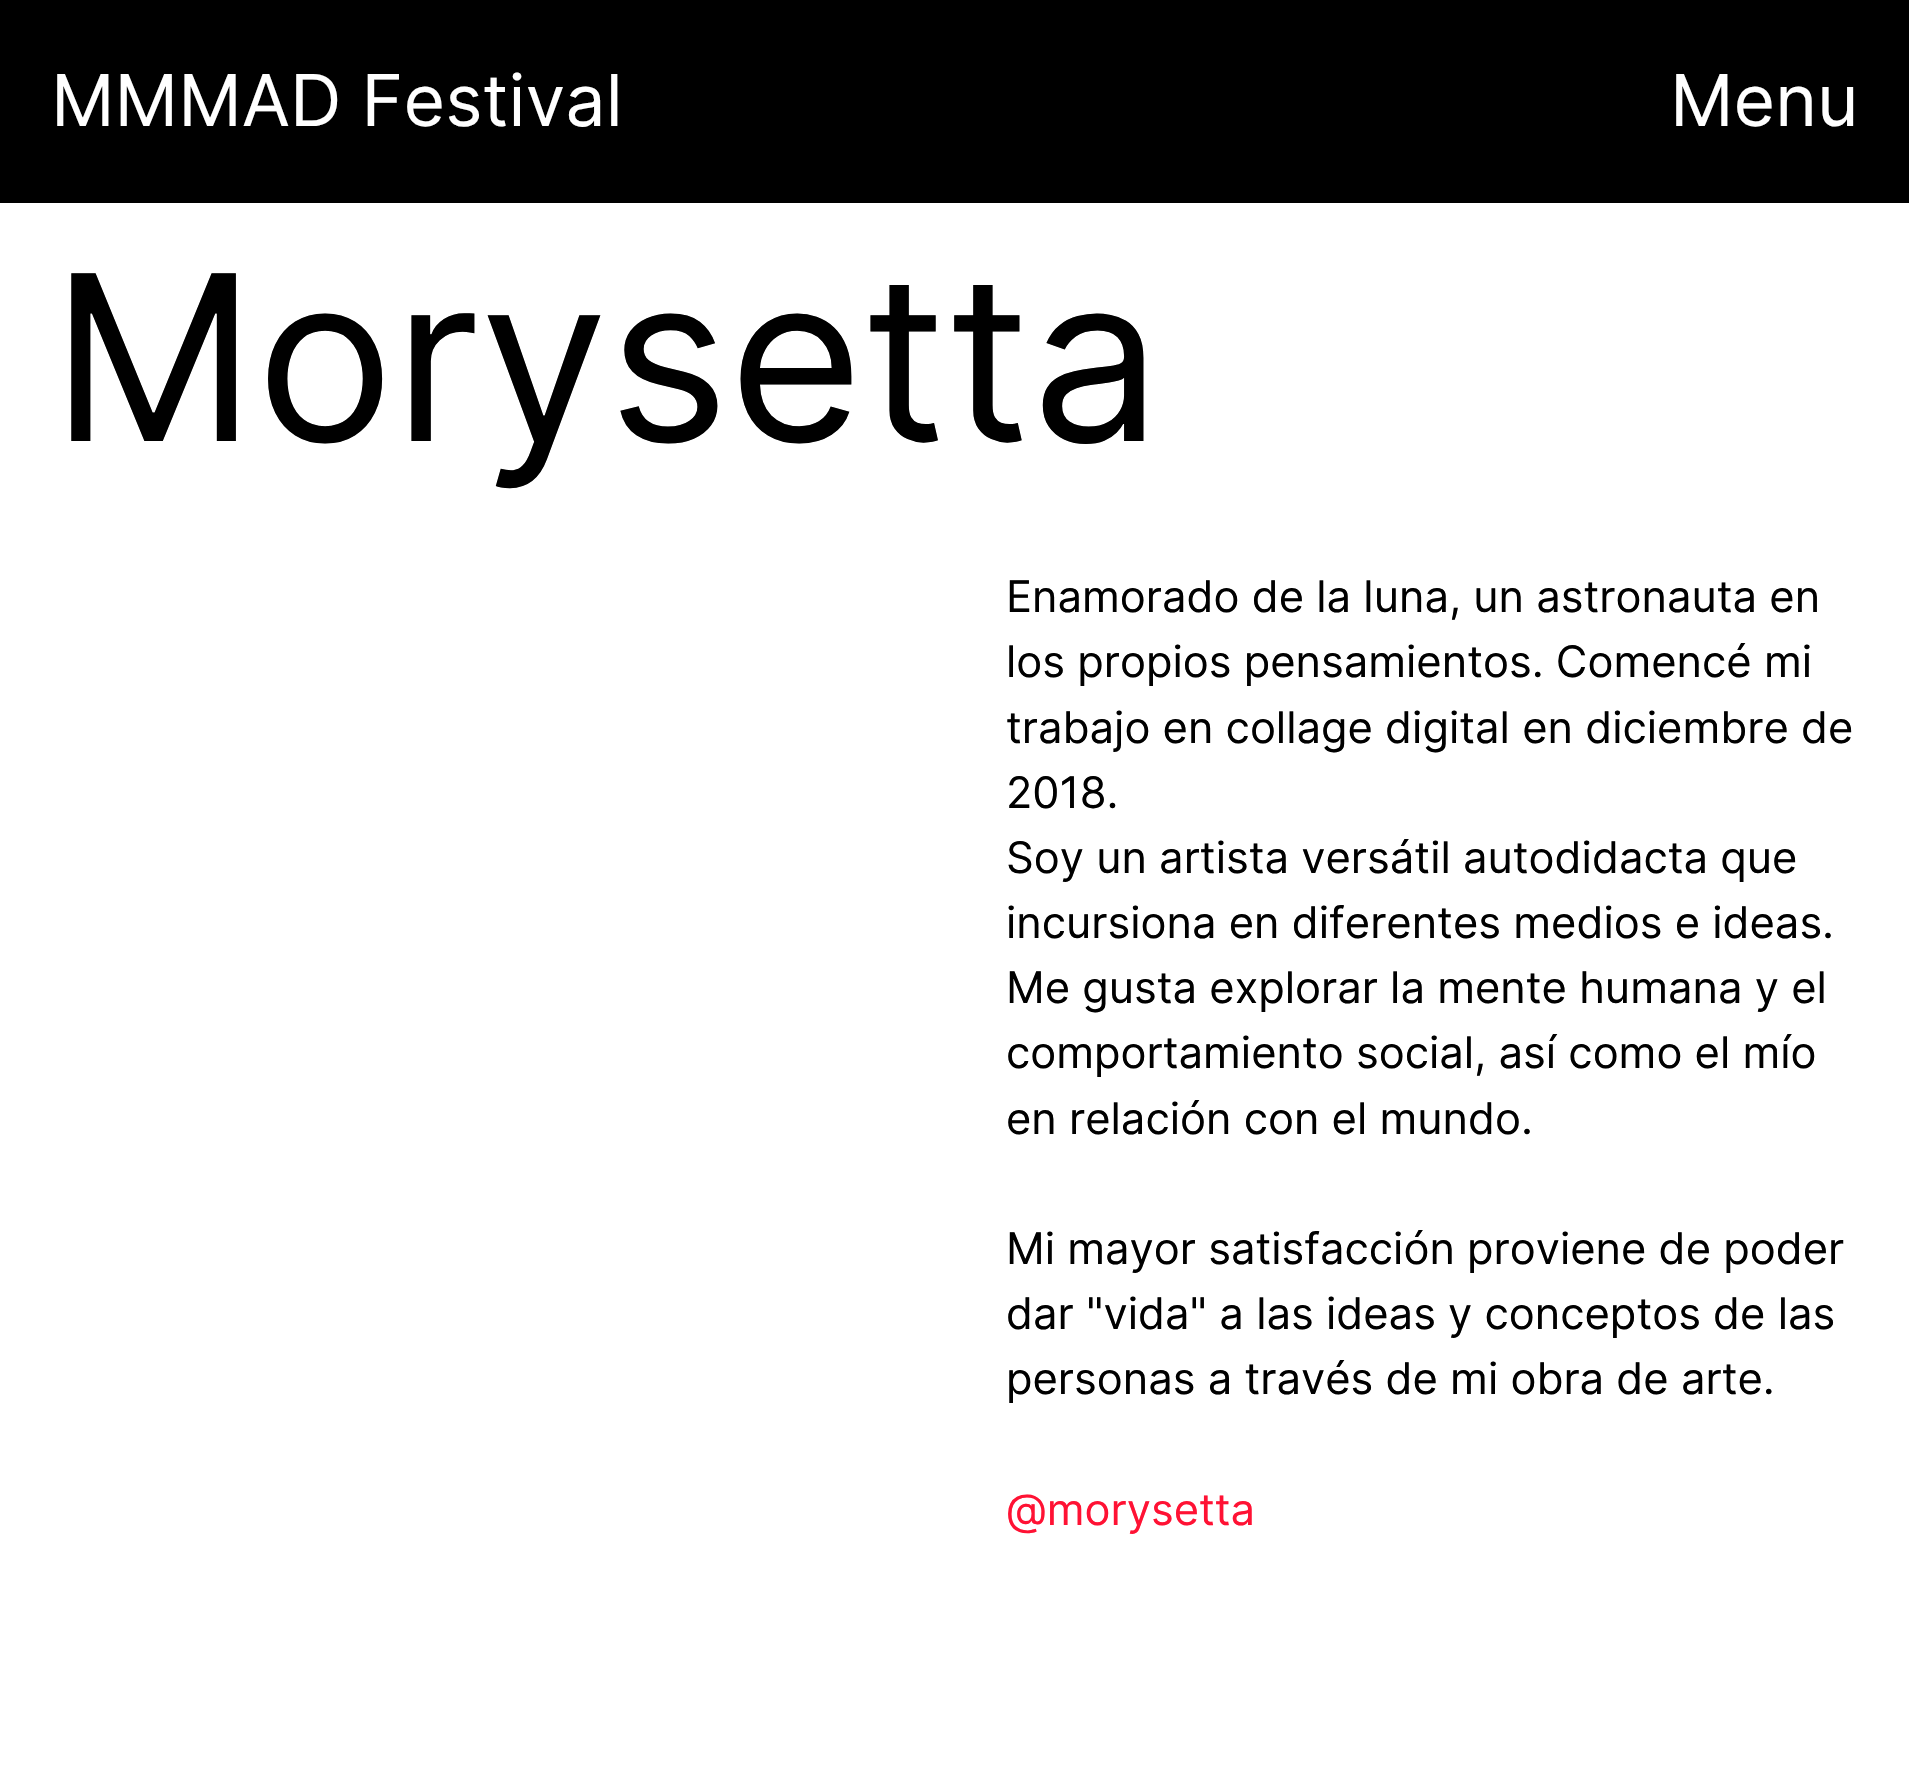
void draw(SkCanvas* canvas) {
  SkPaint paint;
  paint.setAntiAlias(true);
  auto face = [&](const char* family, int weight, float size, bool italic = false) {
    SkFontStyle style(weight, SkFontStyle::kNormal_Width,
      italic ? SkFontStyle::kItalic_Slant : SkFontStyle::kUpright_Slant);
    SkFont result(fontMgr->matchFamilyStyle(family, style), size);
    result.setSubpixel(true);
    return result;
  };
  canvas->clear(0xffffffff);
  paint.setColor(0xff000000);
  canvas->drawRect(SkRect::MakeXYWH(0, 0, 1909, 203), paint);
  auto f0 = face("Inter", 400, 71.5f);
  paint.setColor(0xffffffff);
  canvas->drawString("MMMAD Festival", 51, 126, f0, paint);
  canvas->drawString("Menu", 1670, 126, f0, paint);
  auto f1 = face("Inter", 400, 230.75f);
  paint.setColor(0xff000000);
  canvas->drawString("Morysetta", 51, 441, f1, paint);
  auto f2 = face("Inter", 400, 43.5f);
  {
    const struct { const char* s; float x, y; } items[] = {
      {"Enamorado de la luna, un astronauta en", 1006, 612},
      {"los propios pensamientos. Comencé mi", 1006, 677},
      {"trabajo en collage digital en diciembre de", 1006, 743},
      {"2018.", 1006, 808},
      {"Soy un artista versátil autodidacta que", 1006, 873},
      {"incursiona en diferentes medios e ideas.", 1006, 938},
      {"Me gusta explorar la mente humana y el", 1006, 1003},
      {"comportamiento social, así como el mío", 1006, 1068},
      {"en relación con el mundo.", 1006, 1134},
      {"Mi mayor satisfacción proviene de poder", 1006, 1264},
      {"dar \"vida\" a las ideas y conceptos de las", 1006, 1329},
      {"personas a través de mi obra de arte.", 1006, 1394},
    };
    for (auto [s, x, y] : items) {
      canvas->drawString(s, x, y, f2, paint);
    }
  }
  paint.setColor(0xffff1234);
  canvas->drawString("@morysetta", 1006, 1525, f2, paint);
}
